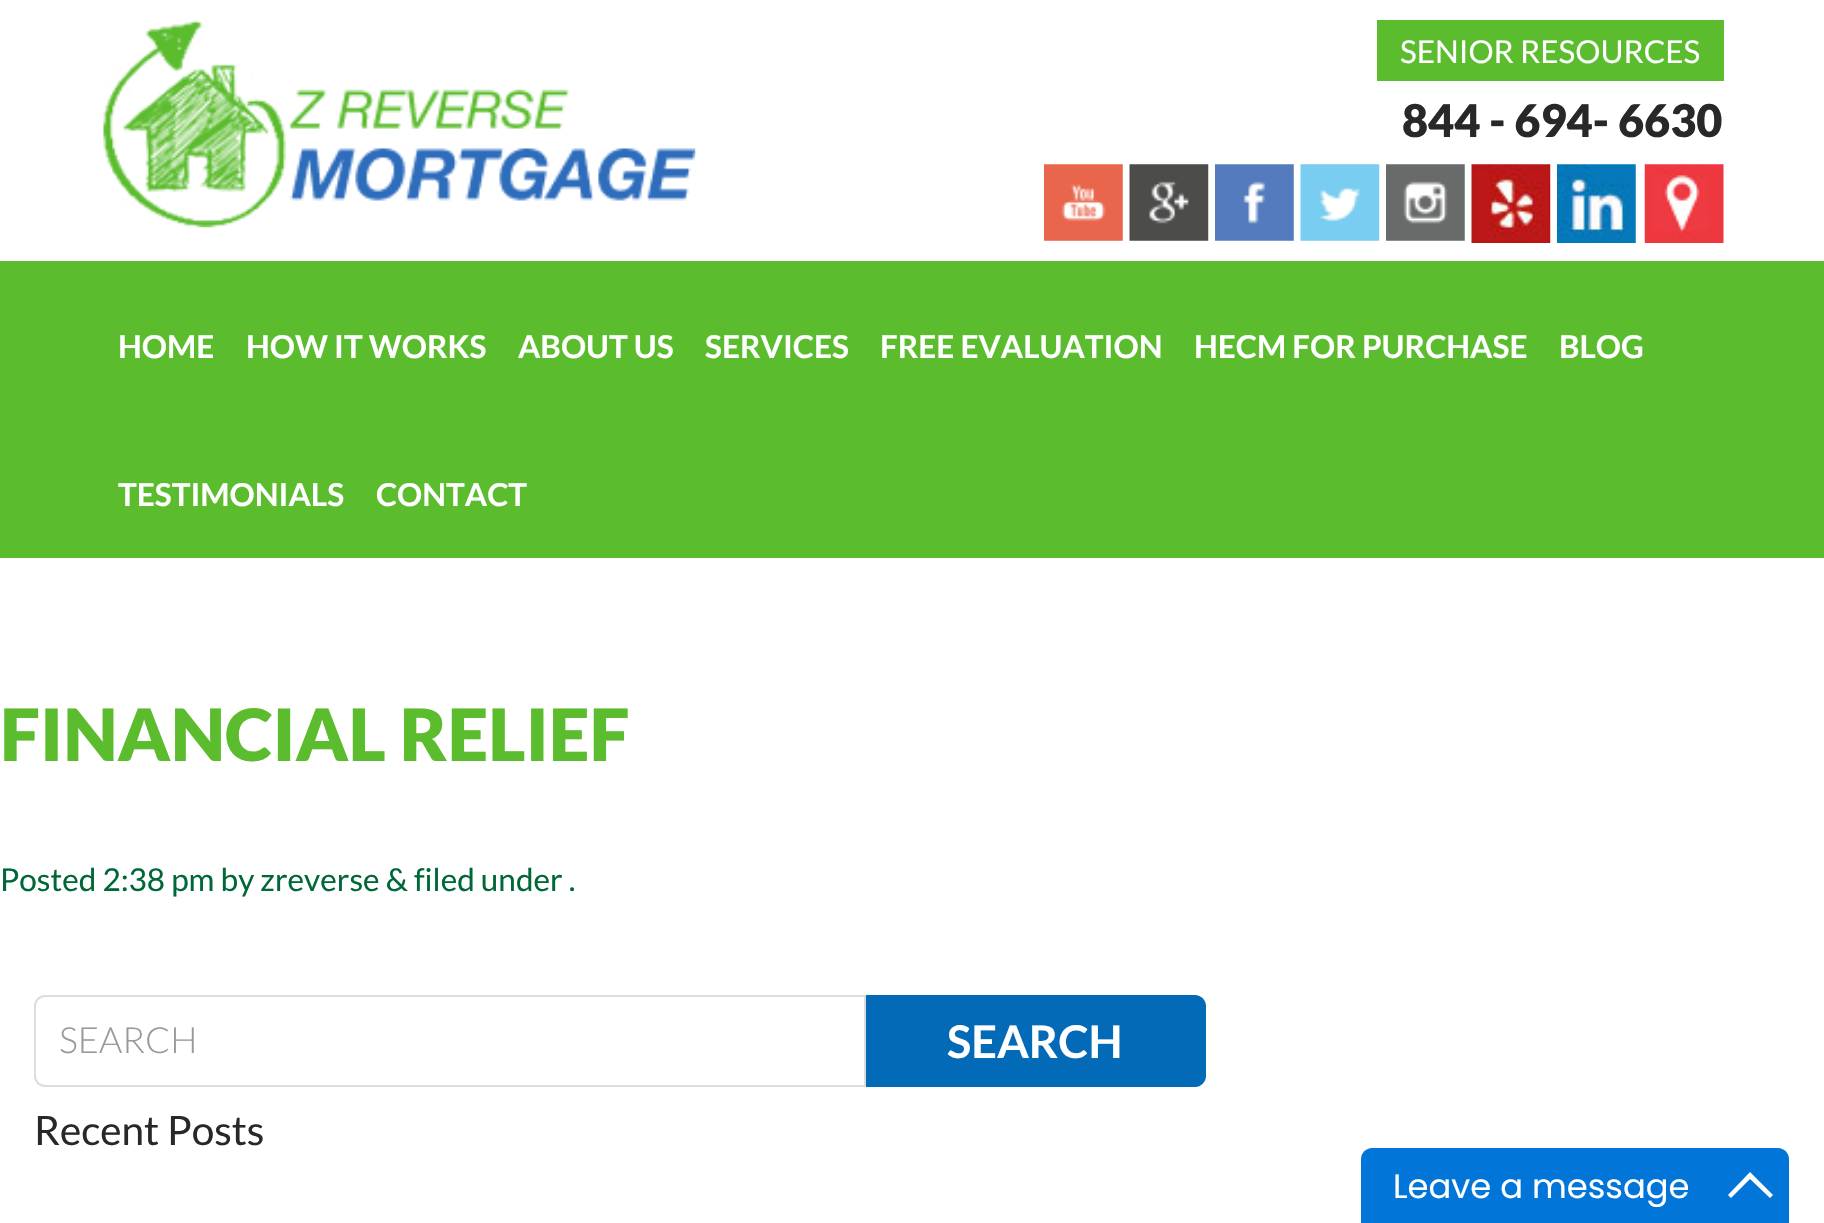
void draw(SkCanvas* canvas) {
  SkPaint paint;
  paint.setAntiAlias(true);
  auto face = [&](const char* family, int weight, float size, bool italic = false) {
    SkFontStyle style(weight, SkFontStyle::kNormal_Width,
      italic ? SkFontStyle::kItalic_Slant : SkFontStyle::kUpright_Slant);
    SkFont result(fontMgr->matchFamilyStyle(family, style), size);
    result.setSubpixel(true);
    return result;
  };
  auto paste = [&](const char* path, float x, float y, float w, float h) {
    auto image = SkImages::DeferredFromEncodedData(SkData::MakeFromFileName(path));
    canvas->drawImageRect(image, SkRect::MakeXYWH(x, y, w, h), SkSamplingOptions());
  };
  auto shape = [&](const char* data, bool evenOdd = false) {
    SkPath result = *SkParsePath::FromSVGString(data);
    if (evenOdd) result.setFillType(SkPathFillType::kEvenOdd);
    return result;
  };
  canvas->clear(0xffffffff);
  paste("img/1.png", 103, 20, 593, 208);
  paint.setColor(0xff5bbc2e);
  canvas->drawRect(SkRect::MakeXYWH(1377, 20, 347, 61), paint);
  paste("img/2.png", 1044, 164, 79, 77);
  paste("img/3.png", 1129, 164, 80, 77);
  paste("img/4.png", 1215, 164, 79, 77);
  paste("img/5.png", 1300, 164, 80, 77);
  paste("img/6.png", 1386, 164, 79, 77);
  paste("img/7.png", 1471, 164, 80, 79);
  paste("img/8.png", 1557, 164, 79, 79);
  paste("img/9.png", 1644, 164, 80, 79);
  canvas->drawRect(SkRect::MakeXYWH(0, 261, 1824, 297), paint);
  paint.setColor(0xff036ab7);
  canvas->drawPath(shape("M864 995H1195C1201 995 1206 1000 1206 1006V1076C1206 1082 1201 1087 1195 1087H864Z"), paint);
  paint.setColor(0xffffffff);
  canvas->drawPath(shape("M45 996H865V1086H45C39.5 1086 35 1081.5 35 1076V1006C35 1000.5 39.5 996 45 996Z"), paint);
  paint.setStroke(true);
  paint.setStrokeWidth(2);
  paint.setColor(0xffdddddd);
  canvas->drawPath(shape("M45 996H865V1086H45C39.5 1086 35 1081.5 35 1076V1006C35 1000.5 39.5 996 45 996Z"), paint);
  paint.setStroke(false);
  paint.setColor(0xff0275d8);
  canvas->drawPath(shape("M1372 1148H1778C1784 1148 1789 1153 1789 1159V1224H1361V1159C1361 1153 1366 1148 1372 1148Z"), paint);
  paint.setColor(0xffffffff);
  canvas->drawPath(shape("M1750 1172L1773 1195L1770 1198L1750 1179L1731 1198L1728 1195Z"), paint);
  auto f0 = face("Lato", 400, 31.5f);
  canvas->drawString("SENIOR RESOURCES", 1400, 63, f0, paint);
  auto f1 = face("Lato", 900, 45);
  paint.setColor(0xff282828);
  canvas->drawString("844 - 694- 6630", 1402, 137, f1, paint);
  auto f2 = face("Lato", 700, 31.5f);
  paint.setColor(0xffffffff);
  {
    const struct { const char* s; float x, y; } items[] = {
      {"HOME", 118, 358},
      {"HOW IT WORKS", 246, 358},
      {"ABOUT US", 518, 358},
      {"SERVICES", 705, 358},
      {"FREE EVALUATION", 880, 358},
      {"HECM FOR PURCHASE", 1194, 358},
      {"BLOG", 1559, 358},
      {"TESTIMONIALS", 118, 506},
      {"CONTACT", 376, 506},
    };
    for (auto [s, x, y] : items) {
      canvas->drawString(s, x, y, f2, paint);
    }
  }
  auto f3 = face("Lato", 900, 72);
  paint.setColor(0xff5bbc2e);
  canvas->drawString("FINANCIAL RELIEF", 0, 761, f3, paint);
  paint.setColor(0xff006837);
  canvas->drawString("Posted 2:38 pm by zreverse & filed under .", 0, 891, f0, paint);
  auto f4 = face("Lato", 300, 36);
  paint.setColor(0xff999999);
  canvas->drawString("SEARCH", 59, 1053, f4, paint);
  auto f5 = face("Lato", 700, 45);
  paint.setColor(0xffffffff);
  canvas->drawString("SEARCH", 947, 1058, f5, paint);
  auto f6 = face("Lato", 400, 40.5f);
  paint.setColor(0xff282828);
  canvas->drawString("Recent Posts", 34, 1145, f6, paint);
  auto f7 = face("Poppins", 400, 33.75f);
  paint.setColor(0xffffffff);
  canvas->drawString("Leave a message", 1393, 1198, f7, paint);
}
